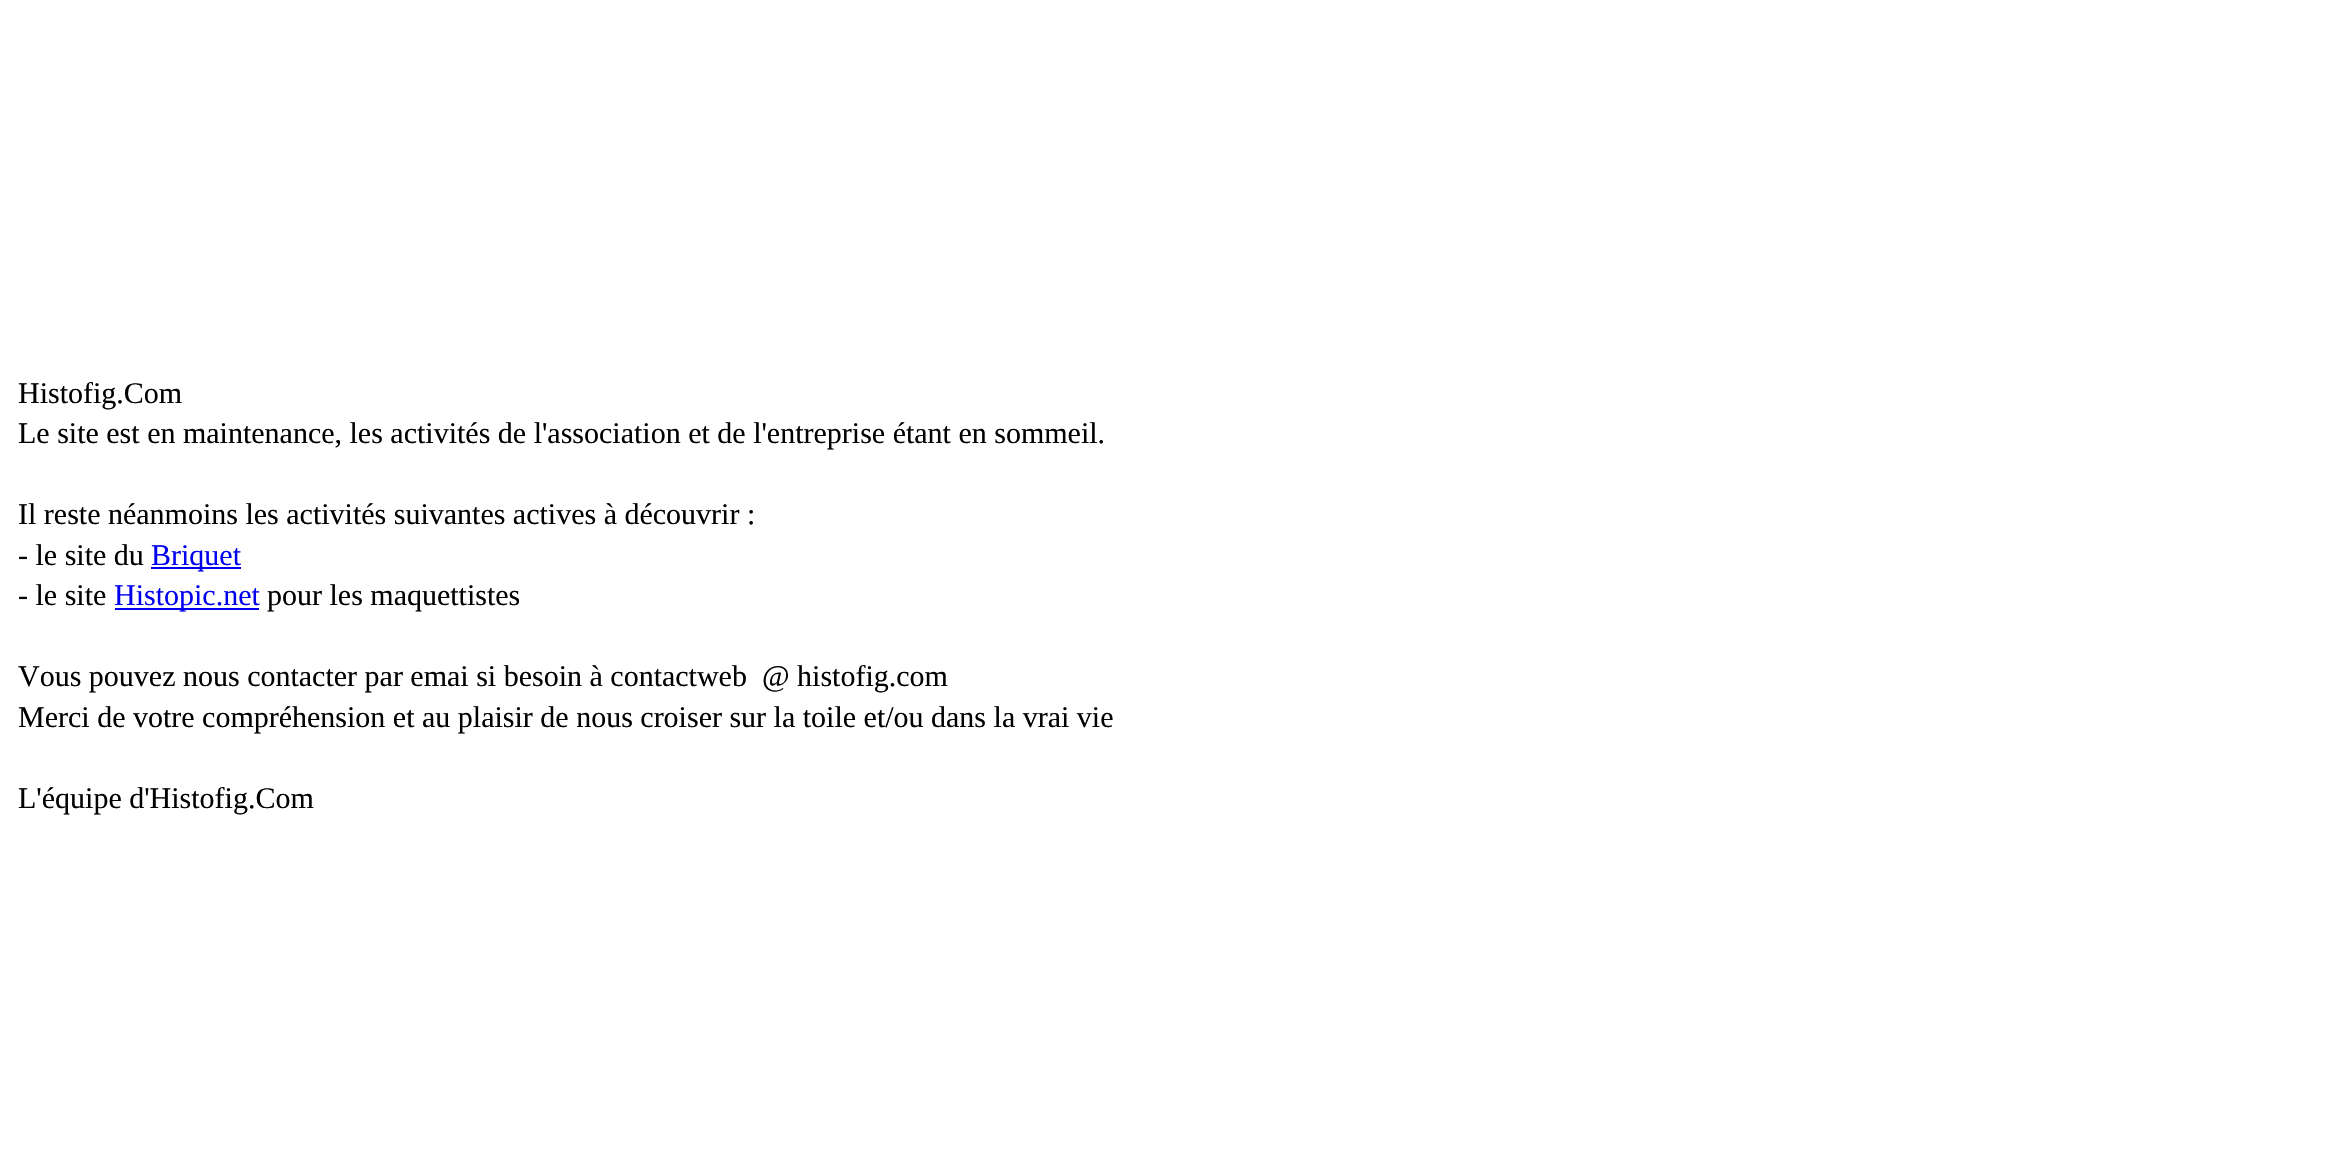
void draw(SkCanvas* canvas) {
  SkPaint paint;
  paint.setAntiAlias(true);
  auto face = [&](const char* family, int weight, float size, bool italic = false) {
    SkFontStyle style(weight, SkFontStyle::kNormal_Width,
      italic ? SkFontStyle::kItalic_Slant : SkFontStyle::kUpright_Slant);
    SkFont result(fontMgr->matchFamilyStyle(family, style), size);
    result.setSubpixel(true);
    return result;
  };
  canvas->clear(0xffffffff);
  paint.setColor(0xff0000ee);
  canvas->drawRect(SkRect::MakeXYWH(151, 567, 90, 2), paint);
  canvas->drawRect(SkRect::MakeXYWH(115, 608, 144, 2), paint);
  auto f0 = face("Liberation Serif", 400, 30);
  paint.setColor(0xff000000);
  {
    const struct { const char* s; float x, y; } items[] = {
      {"Histofig.Com", 18, 403},
      {"Le site est en maintenance, les activités de l'association et de l'entreprise étant en sommeil.", 18, 443},
      {"Il reste néanmoins les activités suivantes actives à découvrir :", 18, 524},
      {"- le site du", 18, 565},
    };
    for (auto [s, x, y] : items) {
      canvas->drawString(s, x, y, f0, paint);
    }
  }
  paint.setColor(0xff0000ee);
  canvas->drawString("Briquet", 151, 565, f0, paint);
  paint.setColor(0xff000000);
  canvas->drawString("- le site", 18, 605, f0, paint);
  paint.setColor(0xff0000ee);
  canvas->drawString("Histopic.net", 114, 605, f0, paint);
  paint.setColor(0xff000000);
  {
    const struct { const char* s; float x, y; } items[] = {
      {"pour les maquettistes", 267, 605},
      {"Vous pouvez nous contacter par emai si besoin à contactweb  @ histofig.com", 18, 686},
      {"Merci de votre compréhension et au plaisir de nous croiser sur la toile et/ou dans la vrai vie", 18, 727},
      {"L'équipe d'Histofig.Com", 18, 808},
    };
    for (auto [s, x, y] : items) {
      canvas->drawString(s, x, y, f0, paint);
    }
  }
}
